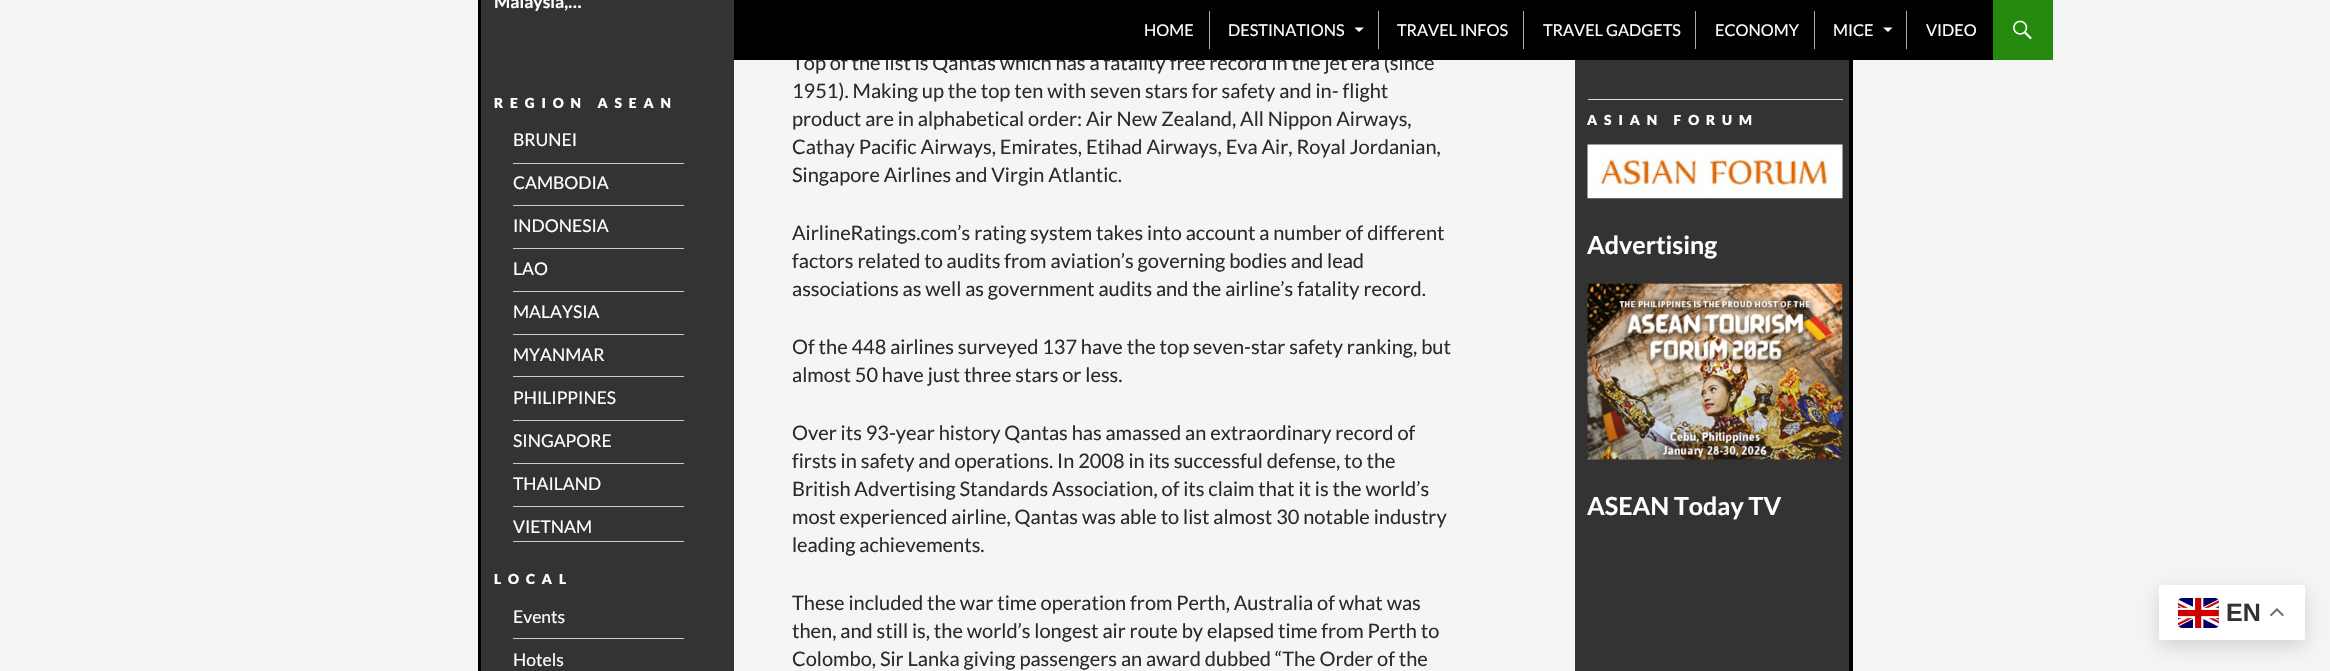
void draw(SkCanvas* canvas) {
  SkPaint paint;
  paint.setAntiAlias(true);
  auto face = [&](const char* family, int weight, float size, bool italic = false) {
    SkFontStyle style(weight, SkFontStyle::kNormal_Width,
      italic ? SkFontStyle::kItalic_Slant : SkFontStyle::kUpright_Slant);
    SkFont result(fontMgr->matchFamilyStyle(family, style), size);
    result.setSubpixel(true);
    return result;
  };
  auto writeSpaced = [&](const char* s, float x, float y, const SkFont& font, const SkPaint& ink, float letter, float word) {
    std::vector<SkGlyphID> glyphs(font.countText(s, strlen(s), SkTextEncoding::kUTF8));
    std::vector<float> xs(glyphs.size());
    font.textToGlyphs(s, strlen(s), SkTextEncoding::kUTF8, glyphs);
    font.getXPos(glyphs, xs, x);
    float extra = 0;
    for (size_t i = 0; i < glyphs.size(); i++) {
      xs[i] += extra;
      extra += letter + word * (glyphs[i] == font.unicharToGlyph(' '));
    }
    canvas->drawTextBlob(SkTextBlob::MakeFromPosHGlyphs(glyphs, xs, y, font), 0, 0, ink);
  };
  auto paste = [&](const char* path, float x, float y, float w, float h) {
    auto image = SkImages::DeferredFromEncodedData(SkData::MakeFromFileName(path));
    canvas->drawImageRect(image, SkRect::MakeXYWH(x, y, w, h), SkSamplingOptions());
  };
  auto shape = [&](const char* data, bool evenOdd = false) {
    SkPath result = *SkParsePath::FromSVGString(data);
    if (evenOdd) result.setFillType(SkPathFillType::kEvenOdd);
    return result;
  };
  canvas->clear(0xfff5f5f5);
  {
    const struct { float x, y, w, h; SkColor color; } items[] = {
      {1849, 60, 4, 611, 0xff000000},
      {478, 60, 3, 611, 0xff000000},
      {1575, 60, 274, 611, 0xff333333},
      {1588, 99, 255, 1, 0xffdddddd},
    };
    for (auto [x, y, w, h, color] : items) {
      paint.setColor(color);
      canvas->drawRect(SkRect::MakeXYWH(x, y, w, h), paint);
    }
  }
  paste("img/1.png", 1587, 144, 256, 55);
  paste("img/2.png", 1587, 283, 256, 177);
  paint.setColor(0xff24890d);
  canvas->drawRect(SkRect::MakeXYWH(1993, 0, 60, 60), paint);
  paste("img/3.png", 2013, 20, 19, 20);
  paint.setColor(0x26000000);
  paint.setMaskFilter(SkMaskFilter::MakeBlur(kNormal_SkBlurStyle, 9.5f));
  canvas->drawRoundRect(SkRect::MakeXYWH(2159, 591, 146, 55), 2.5f, 2.5f, paint);
  paint.setMaskFilter(nullptr);
  paint.setColor(0xffffffff);
  canvas->drawRoundRect(SkRect::MakeXYWH(2159, 585, 146, 55), 2.5f, 2.5f, paint);
  paste("img/4.png", 2178, 598, 41, 30);
  paste("img/5.png", 2270, 608, 14, 9);
  auto f0 = face("Lato", 400, 20);
  paint.setColor(0xff2b2b2b);
  {
    const struct { const char* s; float x, y; } items[] = {
      {"Top of the list is Qantas which has a fatality free record in the jet era (since", 792, 70},
      {"1951). Making up the top ten with seven stars for safety and in- flight", 792, 98},
      {"product are in alphabetical order: Air New Zealand, All Nippon Airways,", 792, 126},
      {"Cathay Pacific Airways, Emirates, Etihad Airways, Eva Air, Royal Jordanian,", 792, 154},
      {"Singapore Airlines and Virgin Atlantic.", 792, 182},
      {"AirlineRatings.com’s rating system takes into account a number of different", 792, 240},
      {"factors related to audits from aviation’s governing bodies and lead", 792, 268},
      {"associations as well as government audits and the airline’s fatality record.", 792, 296},
      {"Of the 448 airlines surveyed 137 have the top seven-star safety ranking, but", 792, 354},
      {"almost 50 have just three stars or less.", 792, 382},
      {"Over its 93-year history Qantas has amassed an extraordinary record of", 792, 440},
      {"firsts in safety and operations. In 2008 in its successful defense, to the", 792, 468},
      {"British Advertising Standards Association, of its claim that it is the world’s", 792, 496},
      {"most experienced airline, Qantas was able to list almost 30 notable industry", 792, 524},
      {"leading achievements.", 792, 552},
      {"These included the war time operation from Perth, Australia of what was", 792, 610},
      {"then, and still is, the world’s longest air route by elapsed time from Perth to", 792, 638},
      {"Colombo, Sir Lanka giving passengers an award dubbed “The Order of the", 792, 666},
    };
    for (auto [s, x, y] : items) {
      canvas->drawString(s, x, y, f0, paint);
    }
  }
  auto f1 = face("Lato", 900, 13.75f);
  paint.setColor(0xffffffff);
  writeSpaced("ASIAN FORUM", 1587, 125, f1, paint, 6.9f, 0);
  auto f2 = face("Lato", 700, 25);
  canvas->drawString("Advertising", 1587, 254, f2, paint);
  canvas->drawString("ASEAN Today TV", 1587, 515, f2, paint);
  paint.setColor(0xff000000);
  canvas->drawRect(SkRect::MakeXYWH(478, 0, 1515, 60), paint);
  paint.setColor(0xff333333);
  canvas->drawRect(SkRect::MakeXYWH(481, 0, 253, 671), paint);
  auto f3 = face("Lato", 400, 17.5f);
  paint.setColor(0xffffffff);
  canvas->drawString("Hotels", 513, 666, f3, paint);
  canvas->drawString("Events", 513, 623, f3, paint);
  writeSpaced("LOCAL", 494, 584, f1, paint, 6.9f, 0);
  {
    const struct { const char* s; float x, y; } items[] = {
      {"VIETNAM", 513, 533},
      {"THAILAND", 513, 490},
      {"SINGAPORE", 513, 447},
      {"PHILIPPINES", 513, 404},
      {"MYANMAR", 513, 361},
      {"MALAYSIA", 513, 318},
      {"LAO", 513, 275},
      {"INDONESIA", 513, 232},
      {"CAMBODIA", 513, 189},
      {"BRUNEI", 513, 146},
    };
    for (auto [s, x, y] : items) {
      canvas->drawString(s, x, y, f3, paint);
    }
  }
  writeSpaced("REGION ASEAN", 494, 108, f1, paint, 6.9f, 0);
  auto f4 = face("Lato", 700, 17.5f);
  canvas->drawString("Malaysia,…", 494, 8, f4, paint);
  {
    const struct { float x, y, w, h; SkColor color; } items[] = {
      {513, 638, 171, 1, 0xffcccccc},
      {513, 541, 171, 1, 0xffcccccc},
      {513, 506, 171, 1, 0xffcccccc},
      {513, 463, 171, 1, 0xffcccccc},
      {513, 420, 171, 1, 0xffcccccc},
      {513, 376, 171, 1, 0xffcccccc},
      {513, 334, 171, 1, 0xffcccccc},
      {513, 291, 171, 1, 0xffcccccc},
      {513, 248, 171, 1, 0xffcccccc},
      {513, 205, 171, 1, 0xffcccccc},
      {513, 163, 171, 1, 0xffcccccc},
      {1209, 11, 1, 38, 0xffaaaaaa},
    };
    for (auto [x, y, w, h, color] : items) {
      paint.setColor(color);
      canvas->drawRect(SkRect::MakeXYWH(x, y, w, h), paint);
    }
  }
  auto f5 = face("Lato", 400, 16.25f);
  paint.setColor(0xffffffff);
  canvas->drawString("HOME", 1144, 36, f5, paint);
  paint.setColor(0xffaaaaaa);
  canvas->drawRect(SkRect::MakeXYWH(1378, 11, 1, 38), paint);
  paint.setColor(0xffffffff);
  canvas->drawString("DESTINATIONS", 1228, 36, f5, paint);
  canvas->drawPath(shape("M1354.5 27.5L1359 32L1364 27.5Z"), paint);
  paint.setColor(0xffaaaaaa);
  canvas->drawRect(SkRect::MakeXYWH(1523, 11, 1, 38), paint);
  paint.setColor(0xffffffff);
  canvas->drawString("TRAVEL INFOS", 1397, 36, f5, paint);
  paint.setColor(0xffaaaaaa);
  canvas->drawRect(SkRect::MakeXYWH(1695, 11, 1, 38), paint);
  paint.setColor(0xffffffff);
  canvas->drawString("TRAVEL GADGETS", 1543, 36, f5, paint);
  paint.setColor(0xffaaaaaa);
  canvas->drawRect(SkRect::MakeXYWH(1814, 11, 1, 38), paint);
  paint.setColor(0xffffffff);
  canvas->drawString("ECONOMY", 1715, 36, f5, paint);
  paint.setColor(0xffaaaaaa);
  canvas->drawRect(SkRect::MakeXYWH(1906, 11, 1, 38), paint);
  paint.setColor(0xffffffff);
  canvas->drawString("MICE", 1833, 36, f5, paint);
  canvas->drawPath(shape("M1883 27.5L1888 32L1892.5 27.5Z"), paint);
  canvas->drawString("VIDEO", 1926, 36, f5, paint);
  auto f6 = face("Liberation Sans", 700, 25);
  paint.setColor(0xff333333);
  canvas->drawString("EN", 2226, 621, f6, paint);
}
